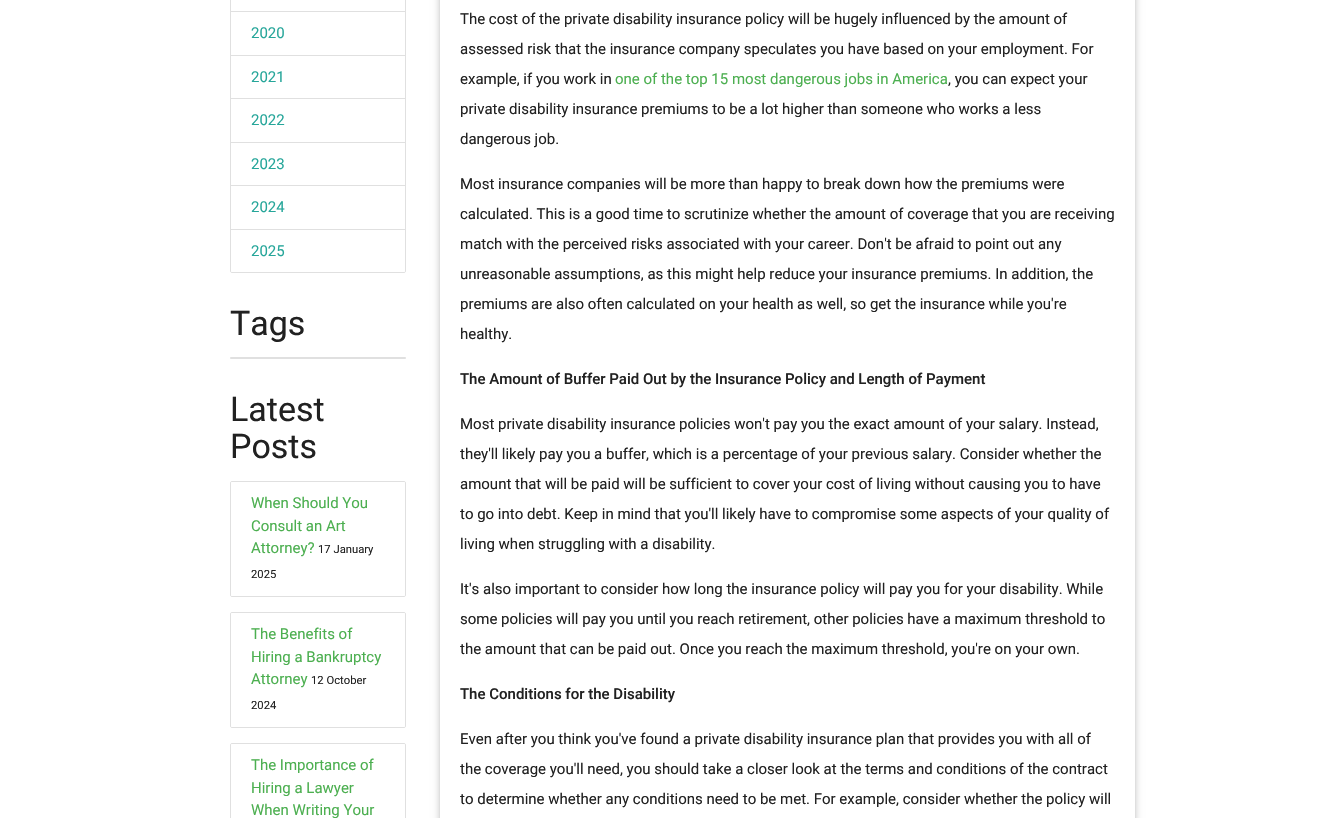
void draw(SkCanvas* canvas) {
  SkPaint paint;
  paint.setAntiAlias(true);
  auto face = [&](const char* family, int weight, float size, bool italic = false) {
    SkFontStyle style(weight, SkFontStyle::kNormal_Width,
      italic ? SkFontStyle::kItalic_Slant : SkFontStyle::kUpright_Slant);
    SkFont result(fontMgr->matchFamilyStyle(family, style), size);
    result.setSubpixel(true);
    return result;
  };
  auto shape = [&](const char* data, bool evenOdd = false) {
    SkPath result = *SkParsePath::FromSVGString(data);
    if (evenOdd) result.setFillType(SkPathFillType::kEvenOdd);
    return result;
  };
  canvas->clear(0xffffffff);
  paint.setStroke(true);
  paint.setStrokeWidth(1);
  paint.setColor(0xffe0e0e0);
  canvas->drawRoundRect(SkRect::MakeXYWH(230.5f, -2.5f, 175, 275), 1.5f, 1.5f, paint);
  paint.setStroke(false);
  {
    const struct { float x, y, w, h; SkColor color; } items[] = {
      {231, 11, 174, 1, 0xffe0e0e0},
      {231, 55, 174, 1, 0xffe0e0e0},
      {231, 98, 174, 1, 0xffe0e0e0},
      {231, 142, 174, 1, 0xffe0e0e0},
      {231, 185, 174, 1, 0xffe0e0e0},
      {231, 229, 174, 1, 0xffe0e0e0},
    };
    for (auto [x, y, w, h, color] : items) {
      paint.setColor(color);
      canvas->drawRect(SkRect::MakeXYWH(x, y, w, h), paint);
    }
  }
  paint.setColor(0xffffffff);
  canvas->drawPath(shape("M231 230H405V271C405 271.5 404.5 272 404 272H232C231.5 272 231 271.5 231 271Z"), paint);
  paint.setColor(0xffe0e0e0);
  canvas->drawRoundRect(SkRect::MakeXYWH(230, 357, 176, 2), 1, 1, paint);
  paint.setStroke(true);
  canvas->drawRoundRect(SkRect::MakeXYWH(230.5f, 481.5f, 175, 115), 1.5f, 1.5f, paint);
  paint.setStroke(false);
  paint.setColor(0xffffffff);
  canvas->drawRoundRect(SkRect::MakeXYWH(231, 482, 174, 114), 1, 1, paint);
  paint.setStroke(true);
  paint.setColor(0xffe0e0e0);
  canvas->drawRoundRect(SkRect::MakeXYWH(230.5f, 612.5f, 175, 115), 1.5f, 1.5f, paint);
  paint.setStroke(false);
  paint.setColor(0xffffffff);
  canvas->drawRoundRect(SkRect::MakeXYWH(231, 613, 174, 114), 1, 1, paint);
  paint.setStroke(true);
  paint.setColor(0xffe0e0e0);
  canvas->drawRoundRect(SkRect::MakeXYWH(230.5f, 743.5f, 175, 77), 1.5f, 1.5f, paint);
  paint.setStroke(false);
  paint.setColor(0xffffffff);
  canvas->drawRoundRect(SkRect::MakeXYWH(231, 744, 174, 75), 1, 1, paint);
  canvas->save();
  canvas->clipPath(shape("M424 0H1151V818H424ZM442-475H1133C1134-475 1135-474 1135-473V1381C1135 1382 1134 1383 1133 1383H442C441 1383 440 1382 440 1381V-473C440-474 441-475 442-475Z", true), true);
  paint.setColor(0x1f000000);
  paint.setMaskFilter(SkMaskFilter::MakeBlur(kNormal_SkBlurStyle, 5));
  canvas->drawRoundRect(SkRect::MakeXYWH(440, -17, 695, 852), 2, 2, paint);
  paint.setMaskFilter(nullptr);
  canvas->restore();
  canvas->save();
  canvas->clipPath(shape("M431 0H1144V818H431ZM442-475H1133C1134-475 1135-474 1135-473V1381C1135 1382 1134 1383 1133 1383H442C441 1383 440 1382 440 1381V-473C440-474 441-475 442-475Z", true), true);
  paint.setColor(0x29000000);
  paint.setMaskFilter(SkMaskFilter::MakeBlur(kNormal_SkBlurStyle, 2.5f));
  canvas->drawRoundRect(SkRect::MakeXYWH(440, -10, 695, 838), 2, 2, paint);
  paint.setMaskFilter(nullptr);
  canvas->restore();
  auto f0 = face("Roboto", 400, 15);
  paint.setColor(0xff26a69a);
  {
    const struct { const char* s; float x, y; } items[] = {
      {"2020", 251, 38},
      {"2021", 251, 82},
      {"2022", 251, 125},
      {"2023", 251, 169},
      {"2024", 251, 212},
      {"2025", 251, 256},
    };
    for (auto [s, x, y] : items) {
      canvas->drawString(s, x, y, f0, paint);
    }
  }
  auto f1 = face("Roboto", 400, 34);
  paint.setColor(0xff212121);
  {
    const struct { const char* s; float x, y; } items[] = {
      {"Tags", 230, 335},
      {"Latest", 230, 421},
      {"Posts", 230, 458},
    };
    for (auto [s, x, y] : items) {
      canvas->drawString(s, x, y, f1, paint);
    }
  }
  paint.setColor(0xff4caf50);
  {
    const struct { const char* s; float x, y; } items[] = {
      {"When Should You", 251, 508},
      {"Consult an Art", 251, 531},
      {"Attorney?", 251, 553},
    };
    for (auto [s, x, y] : items) {
      canvas->drawString(s, x, y, f0, paint);
    }
  }
  auto f2 = face("Roboto", 400, 11.25f);
  paint.setColor(0xff212121);
  canvas->drawString("17 January", 318, 553, f2, paint);
  canvas->drawString("2025", 251, 578, f2, paint);
  paint.setColor(0xff4caf50);
  {
    const struct { const char* s; float x, y; } items[] = {
      {"The Benefits of", 251, 639},
      {"Hiring a Bankruptcy", 251, 662},
      {"Attorney", 251, 684},
    };
    for (auto [s, x, y] : items) {
      canvas->drawString(s, x, y, f0, paint);
    }
  }
  paint.setColor(0xff212121);
  canvas->drawString("12 October", 311, 684, f2, paint);
  canvas->drawString("2024", 251, 709, f2, paint);
  paint.setColor(0xff4caf50);
  {
    const struct { const char* s; float x, y; } items[] = {
      {"The Importance of", 251, 770},
      {"Hiring a Lawyer", 251, 793},
      {"When Writing Your", 251, 815},
    };
    for (auto [s, x, y] : items) {
      canvas->drawString(s, x, y, f0, paint);
    }
  }
  paint.setColor(0xff212121);
  {
    const struct { const char* s; float x, y; } items[] = {
      {"The cost of the private disability insurance policy will be hugely influenced by the amount of", 460, 24},
      {"assessed risk that the insurance company speculates you have based on your employment. For", 460, 54},
      {"example, if you work in", 460, 84},
    };
    for (auto [s, x, y] : items) {
      canvas->drawString(s, x, y, f0, paint);
    }
  }
  paint.setColor(0xff4caf50);
  canvas->drawString("one of the top 15 most dangerous jobs in America", 615, 84, f0, paint);
  paint.setColor(0xff212121);
  {
    const struct { const char* s; float x, y; } items[] = {
      {", you can expect your", 948, 84},
      {"private disability insurance premiums to be a lot higher than someone who works a less", 460, 114},
      {"dangerous job.", 460, 144},
      {"Most insurance companies will be more than happy to break down how the premiums were", 460, 189},
      {"calculated. This is a good time to scrutinize whether the amount of coverage that you are receiving", 460, 219},
      {"match with the perceived risks associated with your career. Don't be afraid to point out any", 460, 249},
      {"unreasonable assumptions, as this might help reduce your insurance premiums. In addition, the", 460, 279},
      {"premiums are also often calculated on your health as well, so get the insurance while you're", 460, 309},
      {"healthy.", 460, 339},
    };
    for (auto [s, x, y] : items) {
      canvas->drawString(s, x, y, f0, paint);
    }
  }
  auto f3 = face("Roboto", 500, 15);
  canvas->drawString("The Amount of Buffer Paid Out by the Insurance Policy and Length of Payment", 460, 384, f3, paint);
  {
    const struct { const char* s; float x, y; } items[] = {
      {"Most private disability insurance policies won't pay you the exact amount of your salary. Instead,", 460, 429},
      {"they'll likely pay you a buffer, which is a percentage of your previous salary. Consider whether the", 460, 459},
      {"amount that will be paid will be sufficient to cover your cost of living without causing you to have", 460, 489},
      {"to go into debt. Keep in mind that you'll likely have to compromise some aspects of your quality of", 460, 519},
      {"living when struggling with a disability.", 460, 549},
      {"It's also important to consider how long the insurance policy will pay you for your disability. While", 460, 594},
      {"some policies will pay you until you reach retirement, other policies have a maximum threshold to", 460, 624},
      {"the amount that can be paid out. Once you reach the maximum threshold, you're on your own.", 460, 654},
    };
    for (auto [s, x, y] : items) {
      canvas->drawString(s, x, y, f0, paint);
    }
  }
  canvas->drawString("The Conditions for the Disability", 460, 699, f3, paint);
  {
    const struct { const char* s; float x, y; } items[] = {
      {"Even after you think you've found a private disability insurance plan that provides you with all of", 460, 744},
      {"the coverage you'll need, you should take a closer look at the terms and conditions of the contract", 460, 774},
      {"to determine whether any conditions need to be met. For example, consider whether the policy will", 460, 804},
    };
    for (auto [s, x, y] : items) {
      canvas->drawString(s, x, y, f0, paint);
    }
  }
}
